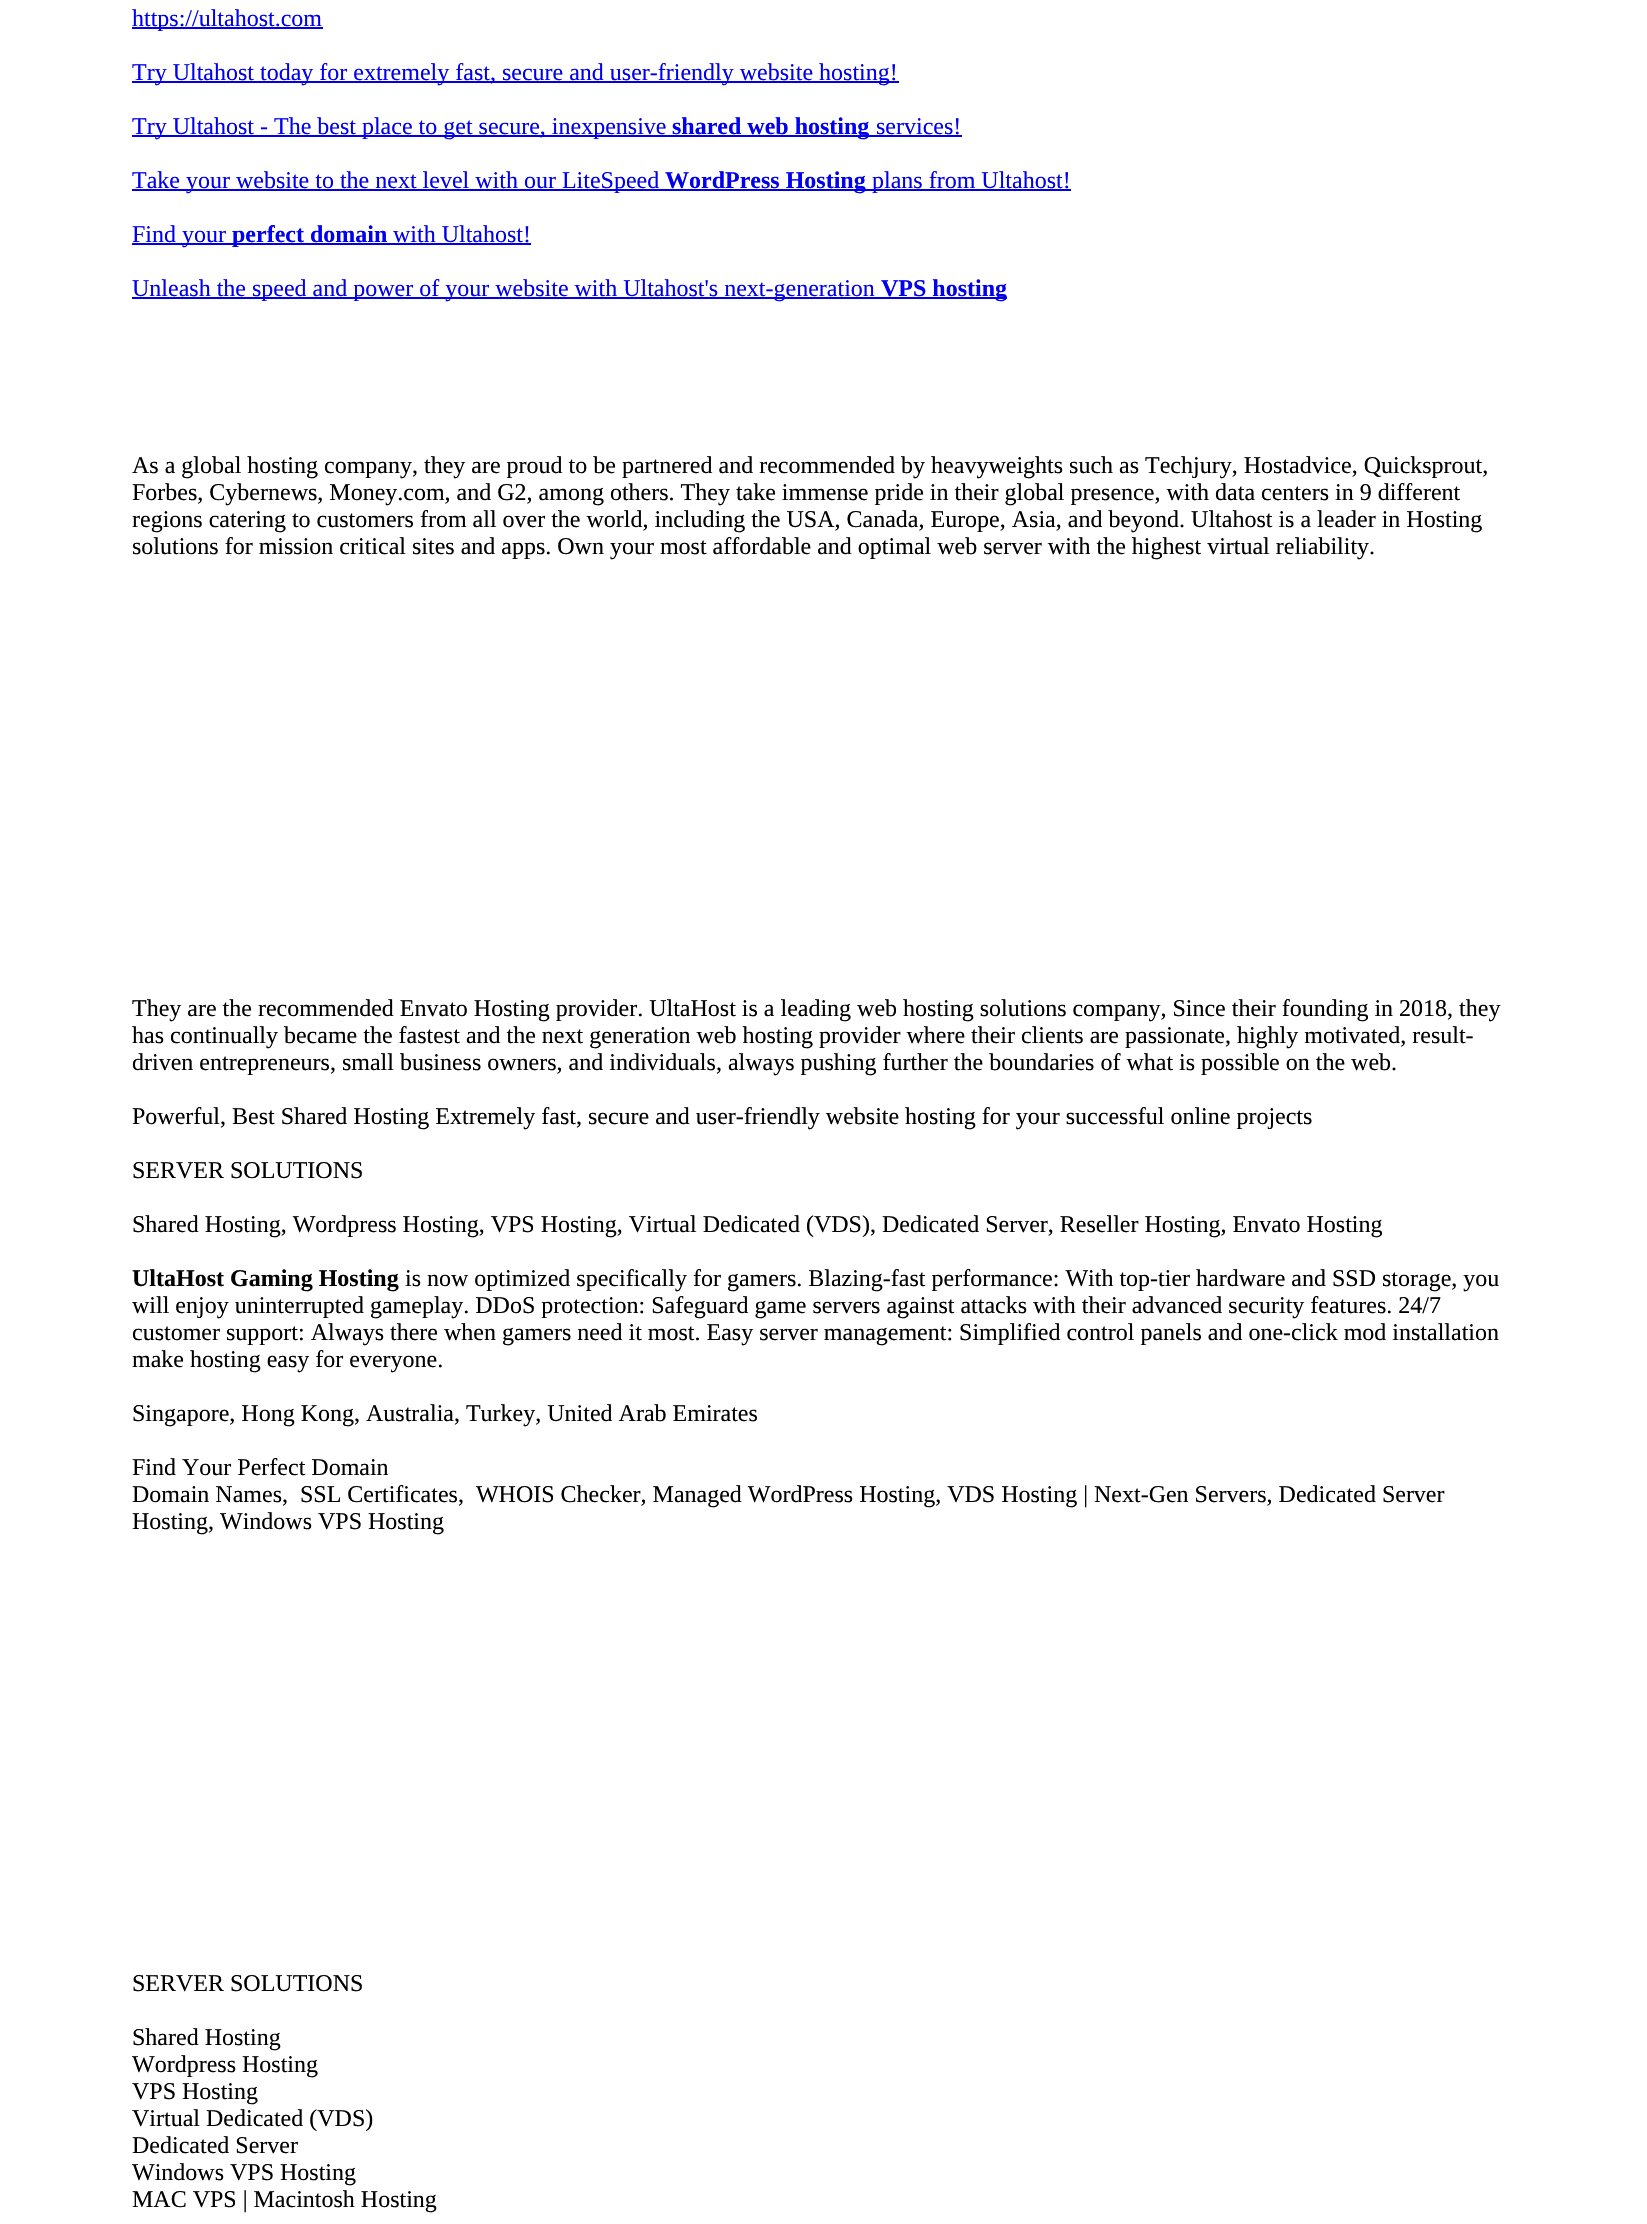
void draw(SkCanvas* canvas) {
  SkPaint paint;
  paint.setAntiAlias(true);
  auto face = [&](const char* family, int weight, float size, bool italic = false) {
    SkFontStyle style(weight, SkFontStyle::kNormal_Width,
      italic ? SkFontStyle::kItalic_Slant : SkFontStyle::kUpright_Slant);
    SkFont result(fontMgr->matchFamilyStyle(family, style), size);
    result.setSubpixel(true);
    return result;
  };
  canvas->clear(0xffffffff);
  {
    const struct { float x, y, w, h; SkColor color; } items[] = {
      {132, 27, 191, 2, 0xff0000ee},
      {132, 81, 767, 2, 0xff0000ee},
      {132, 135, 830, 2, 0xff0000ee},
      {132, 189, 939, 2, 0xff0000ee},
      {132, 243, 399, 2, 0xff0000ee},
      {132, 297, 875, 2, 0xff0000ee},
    };
    for (auto [x, y, w, h, color] : items) {
      paint.setColor(color);
      canvas->drawRect(SkRect::MakeXYWH(x, y, w, h), paint);
    }
  }
  auto f0 = face("Liberation Serif", 400, 24);
  {
    const struct { const char* s; float x, y; } items[] = {
      {"https://ultahost.com", 132, 26},
      {"Try Ultahost today for extremely fast, secure and user-friendly website hosting!", 132, 80},
      {"Try Ultahost - The best place to get secure, inexpensive", 132, 134},
    };
    for (auto [s, x, y] : items) {
      canvas->drawString(s, x, y, f0, paint);
    }
  }
  auto f1 = face("Liberation Serif", 700, 24);
  canvas->drawString("shared web hosting", 672, 134, f1, paint);
  canvas->drawString("services!", 876, 134, f0, paint);
  canvas->drawString("Take your website to the next level with our LiteSpeed", 132, 188, f0, paint);
  canvas->drawString("WordPress Hosting", 665, 188, f1, paint);
  canvas->drawString("plans from Ultahost!", 872, 188, f0, paint);
  canvas->drawString("Find your", 132, 242, f0, paint);
  canvas->drawString("perfect domain", 232, 242, f1, paint);
  canvas->drawString("with Ultahost!", 393, 242, f0, paint);
  canvas->drawString("Unleash the speed and power of your website with Ultahost's next-generation", 132, 296, f0, paint);
  canvas->drawString("VPS hosting", 881, 296, f1, paint);
  paint.setColor(0xff000000);
  {
    const struct { const char* s; float x, y; } items[] = {
      {"As a global hosting company, they are proud to be partnered and recommended by heavyweights such as Techjury, Hostadvice, Quicksprout,", 132, 473},
      {"Forbes, Cybernews, Money.com, and G2, among others. They take immense pride in their global presence, with data centers in 9 different", 132, 500},
      {"regions catering to customers from all over the world, including the USA, Canada, Europe, Asia, and beyond. Ultahost is a leader in Hosting", 132, 527},
      {"solutions for mission critical sites and apps. Own your most affordable and optimal web server with the highest virtual reliability.", 132, 554},
      {"They are the recommended Envato Hosting provider. UltaHost is a leading web hosting solutions company, Since their founding in 2018, they", 132, 1016},
      {"has continually became the fastest and the next generation web hosting provider where their clients are passionate, highly motivated, result-", 132, 1043},
      {"driven entrepreneurs, small business owners, and individuals, always pushing further the boundaries of what is possible on the web.", 132, 1070},
      {"Powerful, Best Shared Hosting Extremely fast, secure and user-friendly website hosting for your successful online projects", 132, 1124},
      {"SERVER SOLUTIONS", 132, 1178},
      {"Shared Hosting, Wordpress Hosting, VPS Hosting, Virtual Dedicated (VDS), Dedicated Server, Reseller Hosting, Envato Hosting", 132, 1232},
    };
    for (auto [s, x, y] : items) {
      canvas->drawString(s, x, y, f0, paint);
    }
  }
  canvas->drawString("UltaHost Gaming Hosting", 132, 1286, f1, paint);
  {
    const struct { const char* s; float x, y; } items[] = {
      {"is now optimized specifically for gamers. Blazing-fast performance: With top-tier hardware and SSD storage, you", 405, 1286},
      {"will enjoy uninterrupted gameplay. DDoS protection: Safeguard game servers against attacks with their advanced security features. 24/7", 132, 1313},
      {"customer support: Always there when gamers need it most. Easy server management: Simplified control panels and one-click mod installation", 132, 1340},
      {"make hosting easy for everyone.", 132, 1367},
      {"Singapore, Hong Kong, Australia, Turkey, United Arab Emirates", 132, 1421},
      {"Find Your Perfect Domain", 132, 1475},
      {"Domain Names,  SSL Certificates,  WHOIS Checker, Managed WordPress Hosting, VDS Hosting | Next-Gen Servers, Dedicated Server", 132, 1502},
      {"Hosting, Windows VPS Hosting", 132, 1529},
      {"SERVER SOLUTIONS", 132, 1991},
      {"Shared Hosting", 132, 2045},
      {"Wordpress Hosting", 132, 2072},
      {"VPS Hosting", 132, 2099},
      {"Virtual Dedicated (VDS)", 132, 2126},
      {"Dedicated Server", 132, 2153},
      {"Windows VPS Hosting", 132, 2180},
      {"MAC VPS | Macintosh Hosting", 132, 2207},
    };
    for (auto [s, x, y] : items) {
      canvas->drawString(s, x, y, f0, paint);
    }
  }
}
